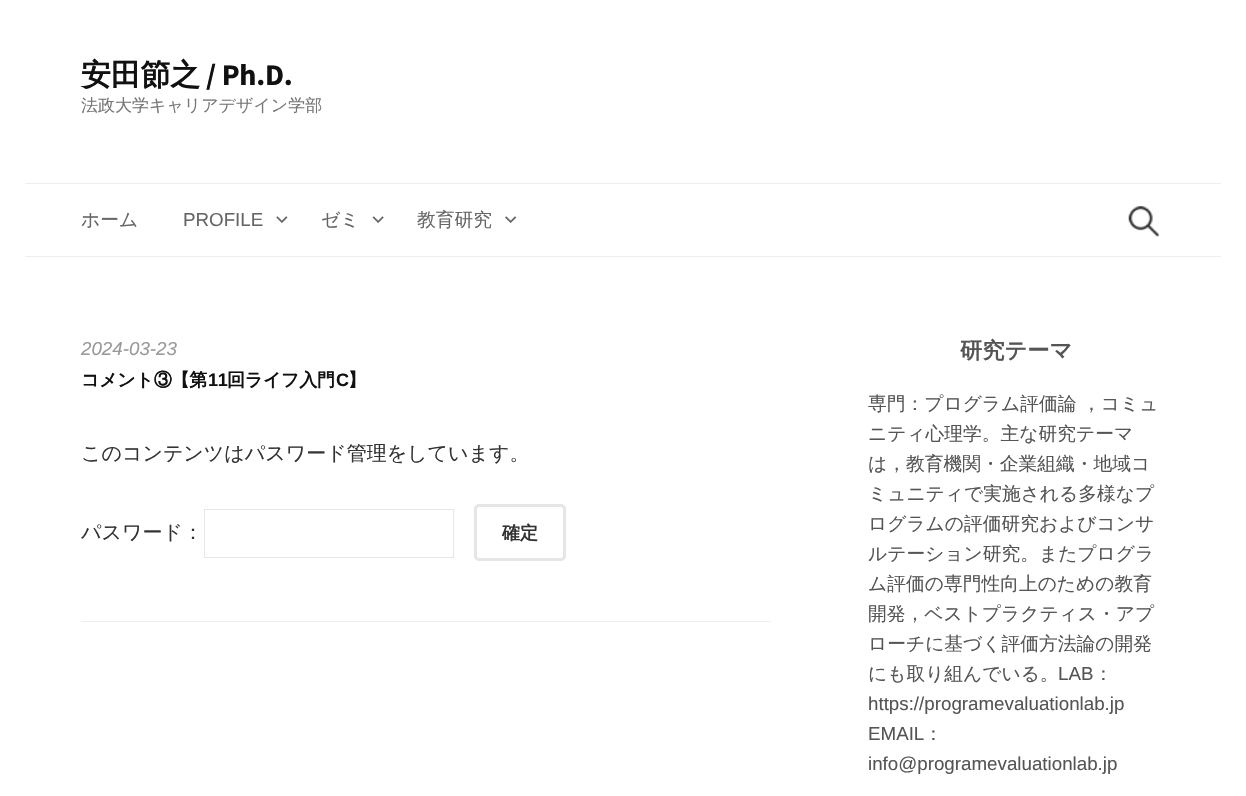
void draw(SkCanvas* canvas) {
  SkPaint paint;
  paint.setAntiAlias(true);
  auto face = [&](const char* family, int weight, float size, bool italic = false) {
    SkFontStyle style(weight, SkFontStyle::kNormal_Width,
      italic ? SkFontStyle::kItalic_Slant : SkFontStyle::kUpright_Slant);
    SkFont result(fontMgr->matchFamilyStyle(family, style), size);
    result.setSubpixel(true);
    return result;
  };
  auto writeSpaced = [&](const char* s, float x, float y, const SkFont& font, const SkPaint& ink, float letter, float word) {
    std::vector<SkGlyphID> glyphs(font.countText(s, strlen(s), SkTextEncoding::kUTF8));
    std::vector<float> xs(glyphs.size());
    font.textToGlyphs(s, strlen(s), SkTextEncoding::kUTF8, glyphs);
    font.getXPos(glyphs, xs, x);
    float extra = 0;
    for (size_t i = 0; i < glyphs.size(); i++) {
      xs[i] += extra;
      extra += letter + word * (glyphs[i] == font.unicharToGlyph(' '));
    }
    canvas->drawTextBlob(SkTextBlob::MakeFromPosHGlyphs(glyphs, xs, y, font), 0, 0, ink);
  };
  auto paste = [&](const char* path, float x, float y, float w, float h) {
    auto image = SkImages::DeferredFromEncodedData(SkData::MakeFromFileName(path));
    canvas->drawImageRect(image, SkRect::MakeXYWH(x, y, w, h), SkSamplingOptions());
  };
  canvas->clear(0xffffffff);
  paint.setColor(0xffeeeeee);
  canvas->drawRect(SkRect::MakeXYWH(25, 183, 1196, 1), paint);
  canvas->drawRect(SkRect::MakeXYWH(25, 256, 1196, 1), paint);
  paste("img/1.png", 276, 216, 12, 7);
  paste("img/2.png", 372, 216, 12, 7);
  paste("img/3.png", 505, 216, 12, 7);
  paste("img/4.png", 1128, 206, 31, 31);
  canvas->drawRect(SkRect::MakeXYWH(81, 621, 690, 1), paint);
  paint.setStroke(true);
  paint.setStrokeWidth(1);
  paint.setColor(0xffe6e6e6);
  canvas->drawRect(SkRect::MakeXYWH(204.5f, 509.5f, 249, 48), paint);
  paint.setStrokeWidth(3);
  canvas->drawRoundRect(SkRect::MakeXYWH(475.5f, 505.5f, 89, 54), 3.5f, 3.5f, paint);
  auto f0 = face("WenQuanYi Zen Hei", 700, 30);
  paint.setStroke(false);
  paint.setColor(0xff111111);
  writeSpaced("安田節之", 81, 85, f0, paint, -0.25f, 0);
  auto f1 = face("Source Sans Pro", 700, 30);
  writeSpaced("/ Ph.D.", 206, 85, f1, paint, -0.25f, 0);
  auto f2 = face("WenQuanYi Zen Hei", 500, 17);
  paint.setColor(0xff777777);
  canvas->drawString("法政大学キャリアデザイン学部", 81, 111, f2, paint);
  auto f3 = face("WenQuanYi Zen Hei", 500, 18.75f);
  paint.setColor(0xff666666);
  canvas->drawString("ホーム", 81, 226, f3, paint);
  auto f4 = face("Liberation Sans", 400, 18.75f);
  canvas->drawString("PROFILE", 183, 226, f4, paint);
  canvas->drawString("ゼミ", 321, 226, f3, paint);
  canvas->drawString("教育研究", 417, 226, f3, paint);
  auto f5 = face("Liberation Sans", 400, 18.75f, true);
  paint.setColor(0xff999999);
  canvas->drawString("2024-03-23", 81, 355, f5, paint);
  auto f6 = face("WenQuanYi Zen Hei", 700, 18);
  paint.setColor(0xff111111);
  writeSpaced("コメント③【第", 81, 386, f6, paint, -0.25f, 0);
  auto f7 = face("Liberation Sans", 700, 18);
  writeSpaced("11", 208, 386, f7, paint, -0.25f, 0);
  writeSpaced("回ライフ入門", 227, 386, f6, paint, -0.25f, 0);
  writeSpaced("C", 336, 386, f7, paint, -0.25f, 0);
  writeSpaced("】", 348, 386, f6, paint, -0.25f, 0);
  auto f8 = face("WenQuanYi Zen Hei", 500, 20);
  paint.setColor(0xff333333);
  canvas->drawString("このコンテンツはパスワード管理をしています。", 81, 460, f8, paint);
  canvas->drawString("パスワード：", 81, 539, f8, paint);
  canvas->drawString("確定", 502, 539, f6, paint);
  auto f9 = face("WenQuanYi Zen Hei", 700, 22.25f);
  paint.setColor(0xff555555);
  canvas->drawString("研究テーマ", 960, 358, f9, paint);
  {
    const struct { const char* s; float x, y; } items[] = {
      {"専門：プログラム評価論 ，コミュ", 868, 410},
      {"ニティ心理学。主な研究テーマ", 868, 440},
      {"は，教育機関・企業組織・地域コ", 868, 470},
      {"ミュニティで実施される多様なプ", 868, 500},
      {"ログラムの評価研究およびコンサ", 868, 530},
      {"ルテーション研究。またプログラ", 868, 560},
      {"ム評価の専門性向上のための教育", 868, 590},
      {"開発，ベストプラクティス・アプ", 868, 620},
      {"ローチに基づく評価方法論の開発", 868, 650},
      {"にも取り組んでいる。", 868, 680},
    };
    for (auto [s, x, y] : items) {
      canvas->drawString(s, x, y, f3, paint);
    }
  }
  canvas->drawString("LAB", 1058, 680, f4, paint);
  canvas->drawString("：", 1094, 680, f3, paint);
  canvas->drawString("https://programevaluationlab.jp", 868, 710, f4, paint);
  canvas->drawString("EMAIL", 868, 740, f4, paint);
  canvas->drawString("：", 924, 740, f3, paint);
  canvas->drawString("info@programevaluationlab.jp", 868, 770, f4, paint);
}
